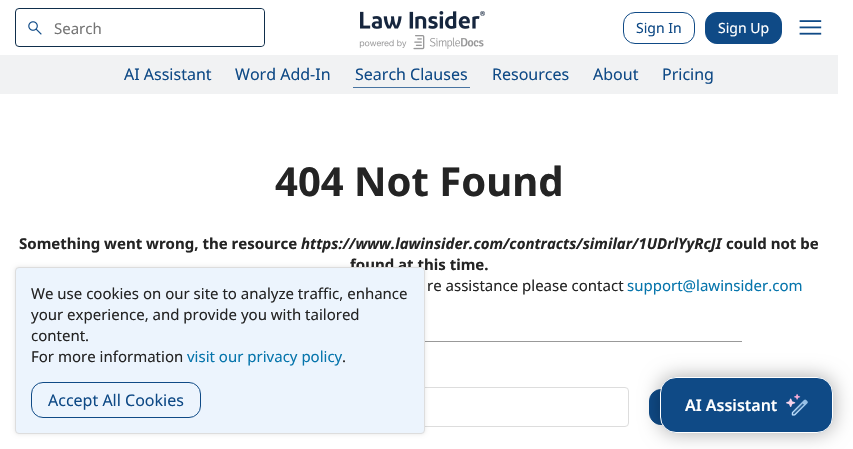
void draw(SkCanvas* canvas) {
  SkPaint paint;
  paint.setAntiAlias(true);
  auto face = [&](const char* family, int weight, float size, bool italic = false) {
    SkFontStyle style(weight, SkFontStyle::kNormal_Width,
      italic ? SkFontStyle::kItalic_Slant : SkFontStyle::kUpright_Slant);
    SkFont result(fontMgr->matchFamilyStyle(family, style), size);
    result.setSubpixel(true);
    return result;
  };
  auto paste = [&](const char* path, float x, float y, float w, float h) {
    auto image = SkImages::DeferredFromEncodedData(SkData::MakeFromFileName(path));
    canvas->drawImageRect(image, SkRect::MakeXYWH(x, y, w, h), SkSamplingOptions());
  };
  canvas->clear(0xffffffff);
  paint.setStroke(true);
  paint.setStrokeWidth(1);
  paint.setColor(0xff0f2e4b);
  canvas->drawRoundRect(SkRect::MakeXYWH(15.5f, 8.5f, 249, 38), 3.5f, 3.5f, paint);
  paste("img/1.png", 28, 21, 14, 14);
  paint.setStroke(false);
  paint.setColor(0xffffffff);
  canvas->drawRoundRect(SkRect::MakeXYWH(54, 9, 210, 37), 4, 4, paint);
  paste("img/2.png", 360, 11, 125, 18);
  paste("img/3.png", 359, 35, 125, 15);
  paint.setStroke(true);
  paint.setColor(0xff0f4a86);
  canvas->drawRoundRect(SkRect::MakeXYWH(623.5f, 12.5f, 71, 31), 11.5f, 11.5f, paint);
  paint.setStroke(false);
  canvas->drawRoundRect(SkRect::MakeXYWH(705.5f, 12.5f, 76, 31), 11.5f, 11.5f, paint);
  paint.setStroke(true);
  canvas->drawRoundRect(SkRect::MakeXYWH(705.5f, 12.5f, 76, 31), 11.5f, 11.5f, paint);
  paste("img/4.png", 799, 20, 23, 15);
  paint.setStroke(false);
  {
    const struct { float x, y, w, h; SkColor color; } items[] = {
      {0, 55, 838, 39, 0xfff1f2f3},
      {353, 87, 117, 1, 0xff4874a1},
      {425, 341, 317, 1, 0xff999999},
    };
    for (auto [x, y, w, h, color] : items) {
      paint.setColor(color);
      canvas->drawRect(SkRect::MakeXYWH(x, y, w, h), paint);
    }
  }
  paint.setStroke(true);
  paint.setColor(0xffdddddd);
  canvas->drawRoundRect(SkRect::MakeXYWH(230.5f, 387.5f, 398, 39), 3.5f, 3.5f, paint);
  paint.setStroke(false);
  paint.setColor(0x1a000000);
  paint.setMaskFilter(SkMaskFilter::MakeBlur(kNormal_SkBlurStyle, 2));
  canvas->drawRoundRect(SkRect::MakeXYWH(15, 267, 410, 167), 4, 4, paint);
  paint.setMaskFilter(nullptr);
  paint.setColor(0xff0f4a86);
  canvas->drawRoundRect(SkRect::MakeXYWH(649.5f, 389.5f, 84, 35), 11.5f, 11.5f, paint);
  paint.setStroke(true);
  canvas->drawRoundRect(SkRect::MakeXYWH(649.5f, 389.5f, 84, 35), 11.5f, 11.5f, paint);
  paint.setStroke(false);
  paint.setColor(0x54000000);
  paint.setMaskFilter(SkMaskFilter::MakeBlur(kNormal_SkBlurStyle, 10));
  canvas->drawRoundRect(SkRect::MakeXYWH(660, 377, 173, 56), 16, 16, paint);
  paint.setMaskFilter(nullptr);
  paint.setColor(0xff0f4a86);
  canvas->drawRoundRect(SkRect::MakeXYWH(660.5f, 377.5f, 172, 55), 15.5f, 15.5f, paint);
  paint.setStroke(true);
  paint.setColor(0xffffffff);
  canvas->drawRoundRect(SkRect::MakeXYWH(660.5f, 377.5f, 172, 55), 15.5f, 15.5f, paint);
  paste("img/5.png", 786, 394, 22, 22);
  auto f0 = face("Noto Sans", 400, 15);
  paint.setStroke(false);
  paint.setColor(0xff757575);
  canvas->drawString("Search", 54, 34, f0, paint);
  auto f1 = face("Noto Sans", 400, 14);
  paint.setColor(0xff0f4a86);
  canvas->drawString("Sign In", 636, 33, f1, paint);
  paint.setColor(0xffffffff);
  canvas->drawString("Sign Up", 718, 33, f1, paint);
  auto f2 = face("Noto Sans", 400, 16);
  paint.setColor(0xff0f4a86);
  {
    const struct { const char* s; float x, y; } items[] = {
      {"AI Assistant", 124, 80},
      {"Word Add-In", 235, 80},
      {"Search Clauses", 355, 80},
      {"Resources", 492, 80},
      {"About", 593, 80},
      {"Pricing", 662, 80},
    };
    for (auto [s, x, y] : items) {
      canvas->drawString(s, x, y, f2, paint);
    }
  }
  auto f3 = face("Noto Sans", 700, 40);
  paint.setColor(0xff242424);
  canvas->drawString("404 Not Found", 275, 196, f3, paint);
  auto f4 = face("Noto Sans", 700, 15);
  canvas->drawString("Something went wrong, the resource", 19, 249, f4, paint);
  auto f5 = face("Noto Sans", 700, 15, true);
  canvas->drawString("https://www.lawinsider.com/contracts/similar/1UDrlYyRcJI", 301, 249, f5, paint);
  canvas->drawString("could not be", 726, 249, f4, paint);
  canvas->drawString("found at this time.", 350, 270, f4, paint);
  paint.setColor(0xffecf4fd);
  canvas->drawRoundRect(SkRect::MakeXYWH(15.5f, 267.5f, 409, 166), 3.5f, 3.5f, paint);
  paint.setStroke(true);
  paint.setColor(0xffdddddd);
  canvas->drawRoundRect(SkRect::MakeXYWH(15.5f, 267.5f, 409, 166), 3.5f, 3.5f, paint);
  paint.setColor(0xff0f4a86);
  canvas->drawRoundRect(SkRect::MakeXYWH(31.5f, 382.5f, 169, 35), 11.5f, 11.5f, paint);
  paint.setStroke(false);
  canvas->drawString("Accept All Cookies", 48, 406, f2, paint);
  paint.setColor(0xff242424);
  canvas->drawString(".", 342, 362, f0, paint);
  paint.setColor(0xff0675ac);
  canvas->drawString("visit our privacy policy", 187, 362, f0, paint);
  paint.setColor(0xff242424);
  {
    const struct { const char* s; float x, y; } items[] = {
      {"For more information", 31, 362},
      {"content.", 31, 341},
      {"your experience, and provide you with tailored", 31, 320},
      {"We use cookies on our site to analyze traffic, enhance", 31, 299},
      {"re assistance please contact", 427, 291},
    };
    for (auto [s, x, y] : items) {
      canvas->drawString(s, x, y, f0, paint);
    }
  }
  paint.setColor(0xff0675ac);
  canvas->drawString("support@lawinsider.com", 627, 291, f0, paint);
  auto f6 = face("Noto Sans", 600, 16);
  paint.setColor(0xffffffff);
  canvas->drawString("AI Assistant", 685, 411, f6, paint);
}
